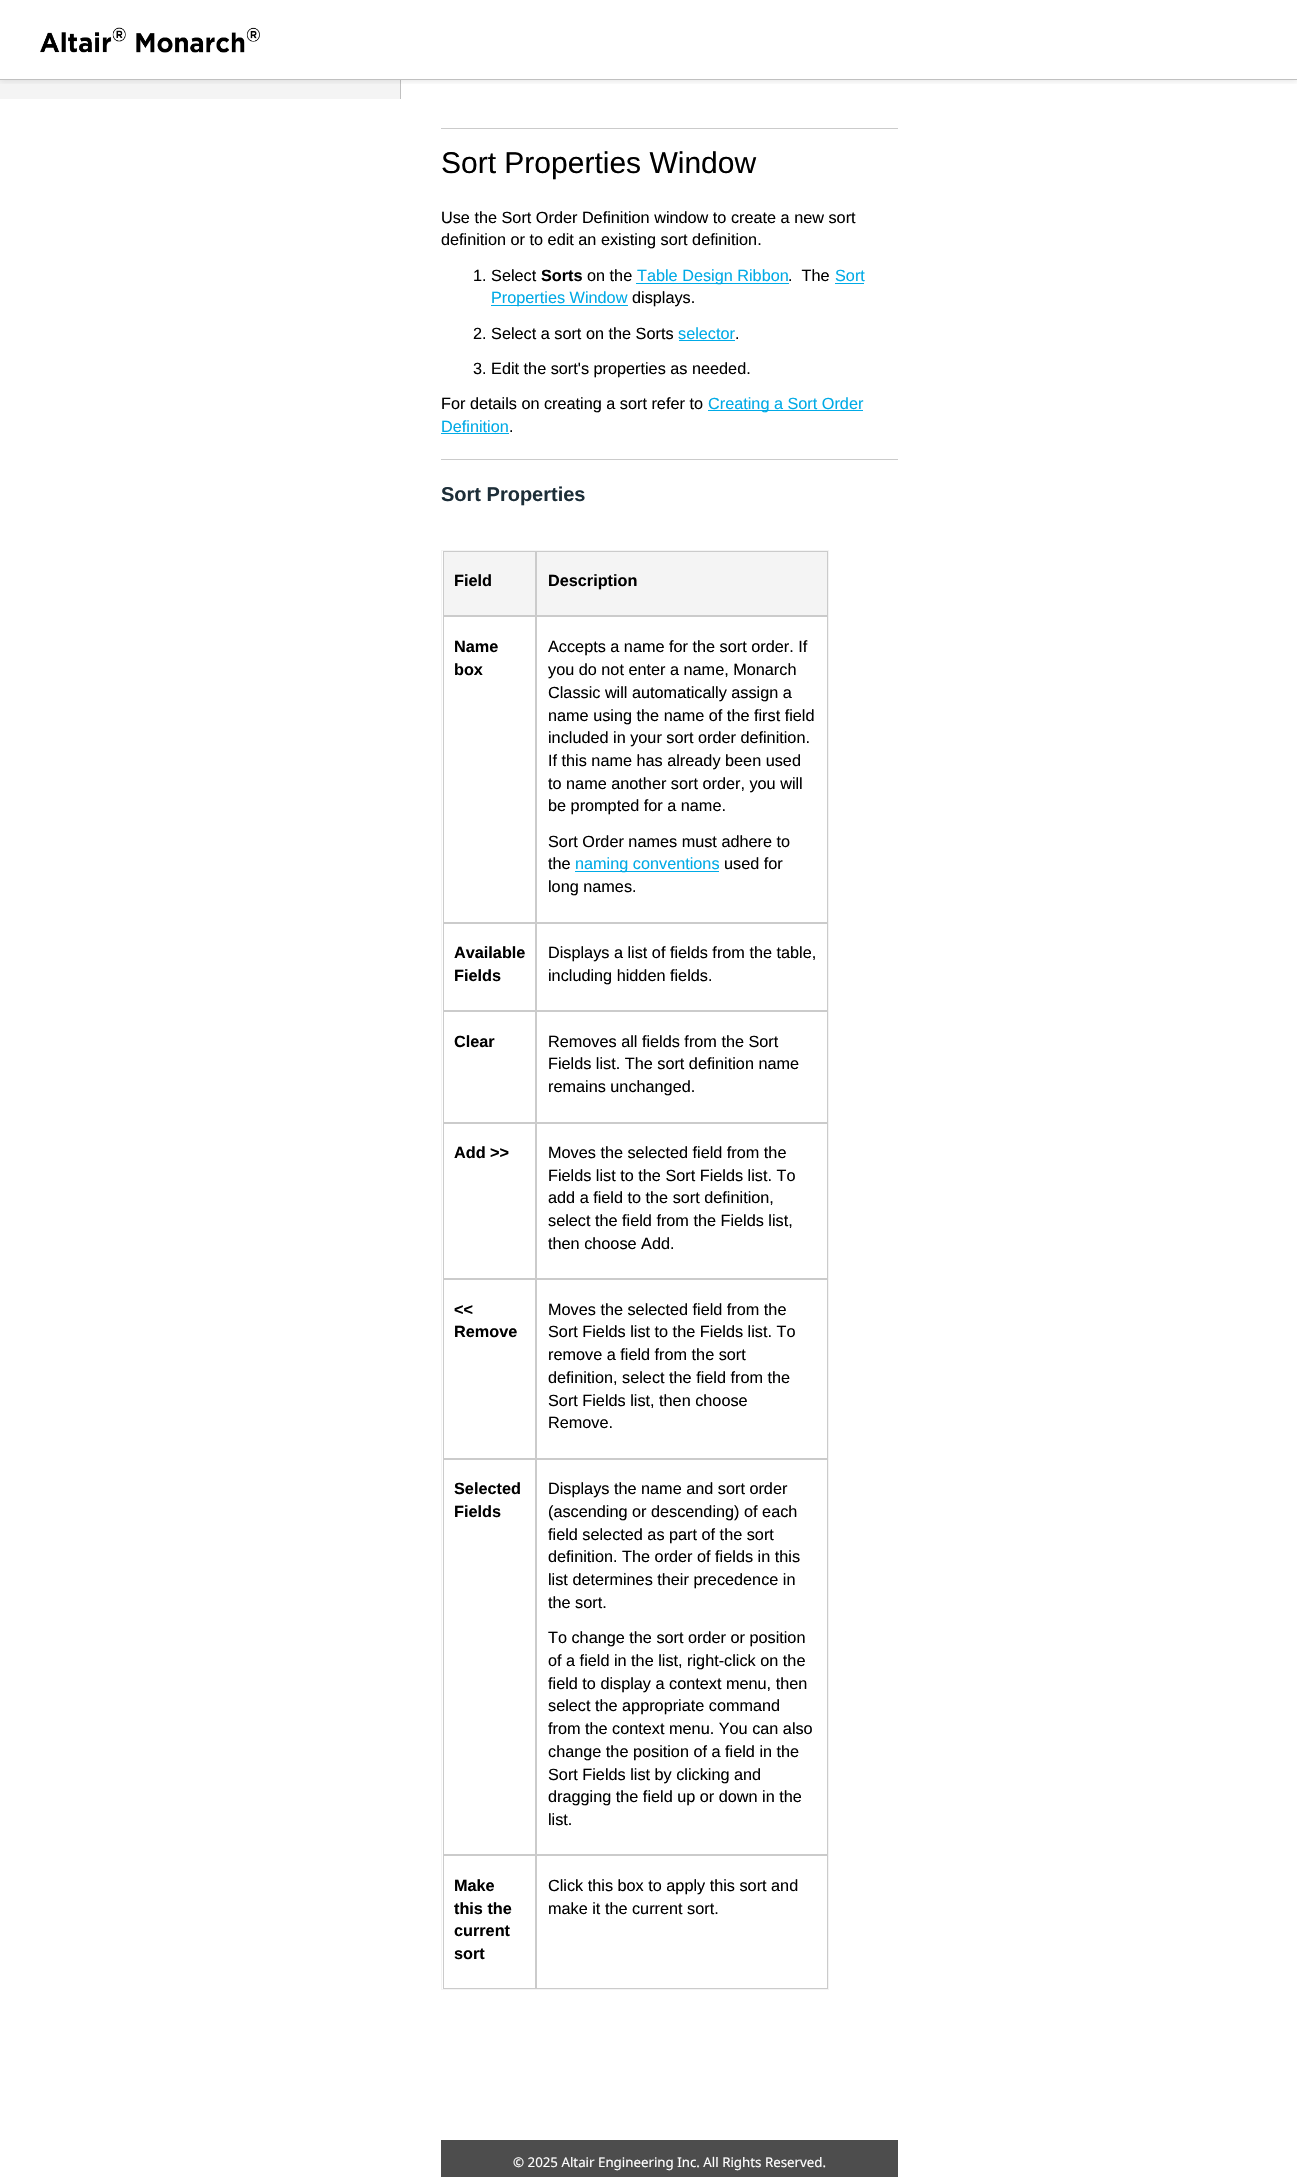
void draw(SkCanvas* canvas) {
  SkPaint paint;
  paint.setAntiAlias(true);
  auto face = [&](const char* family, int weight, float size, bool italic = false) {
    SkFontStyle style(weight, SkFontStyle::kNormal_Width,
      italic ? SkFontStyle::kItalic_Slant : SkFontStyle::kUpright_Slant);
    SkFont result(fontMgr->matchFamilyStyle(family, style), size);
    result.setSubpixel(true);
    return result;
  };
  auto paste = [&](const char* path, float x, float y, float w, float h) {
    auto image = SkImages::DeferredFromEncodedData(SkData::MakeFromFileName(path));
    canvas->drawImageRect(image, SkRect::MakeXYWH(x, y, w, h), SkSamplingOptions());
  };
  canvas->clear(0xffffffff);
  paint.setColor(0xfff4f4f4);
  canvas->drawRect(SkRect::MakeXYWH(0, 80, 400, 19), paint);
  paint.setColor(0xffc0c0c0);
  canvas->drawRect(SkRect::MakeXYWH(400, 80, 1, 19), paint);
  canvas->save();
  canvas->clipRect(SkRect::MakeXYWH(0, 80, 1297, 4));
  paint.setColor(0x1a000000);
  paint.setMaskFilter(SkMaskFilter::MakeBlur(kNormal_SkBlurStyle, 3));
  canvas->drawRect(SkRect::MakeXYWH(0, 1, 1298, 80), paint);
  paint.setMaskFilter(nullptr);
  canvas->restore();
  paint.setColor(0xffc0c0c0);
  canvas->drawRect(SkRect::MakeXYWH(0, 79, 1297, 1), paint);
  paste("img/1.png", 40, 27, 220, 26);
  {
    const struct { float x, y, w, h; SkColor color; } items[] = {
      {441, 128, 457, 1, 0xffcbcbcb},
      {636, 283, 153, 1, 0xff00aae6},
      {835, 283, 29, 1, 0xff00aae6},
      {491, 305, 137, 1, 0xff00aae6},
      {679, 340, 56, 1, 0xff00aae6},
      {708, 410, 155, 1, 0xff00aae6},
      {441, 433, 68, 1, 0xff00aae6},
      {441, 459, 457, 1, 0xffcbcbcb},
    };
    for (auto [x, y, w, h, color] : items) {
      paint.setColor(color);
      canvas->drawRect(SkRect::MakeXYWH(x, y, w, h), paint);
    }
  }
  paint.setStroke(true);
  paint.setStrokeWidth(1);
  paint.setColor(0xfff4f4f4);
  canvas->drawRect(SkRect::MakeXYWH(441.5f, 550.5f, 387, 1439), paint);
  paint.setStroke(false);
  canvas->drawRect(SkRect::MakeXYWH(443.5f, 551.5f, 92, 64), paint);
  paint.setStroke(true);
  paint.setColor(0xffcbcbcb);
  canvas->drawRect(SkRect::MakeXYWH(443.5f, 551.5f, 92, 64), paint);
  paint.setStroke(false);
  paint.setColor(0xfff4f4f4);
  canvas->drawRect(SkRect::MakeXYWH(536.5f, 551.5f, 291, 64), paint);
  paint.setStroke(true);
  paint.setColor(0xffcbcbcb);
  canvas->drawRect(SkRect::MakeXYWH(536.5f, 551.5f, 291, 64), paint);
  canvas->drawRect(SkRect::MakeXYWH(443.5f, 616.5f, 92, 306), paint);
  canvas->drawRect(SkRect::MakeXYWH(536.5f, 616.5f, 291, 306), paint);
  paint.setStroke(false);
  paint.setColor(0xff00aae6);
  canvas->drawRect(SkRect::MakeXYWH(575, 871, 144, 1), paint);
  paint.setStroke(true);
  paint.setColor(0xffcbcbcb);
  canvas->drawRect(SkRect::MakeXYWH(443.5f, 923.5f, 92, 87), paint);
  canvas->drawRect(SkRect::MakeXYWH(536.5f, 923.5f, 291, 87), paint);
  canvas->drawRect(SkRect::MakeXYWH(443.5f, 1011.5f, 92, 111), paint);
  canvas->drawRect(SkRect::MakeXYWH(536.5f, 1011.5f, 291, 111), paint);
  canvas->drawRect(SkRect::MakeXYWH(443.5f, 1123.5f, 92, 155), paint);
  canvas->drawRect(SkRect::MakeXYWH(536.5f, 1123.5f, 291, 155), paint);
  canvas->drawRect(SkRect::MakeXYWH(443.5f, 1279.5f, 92, 179), paint);
  canvas->drawRect(SkRect::MakeXYWH(536.5f, 1279.5f, 291, 179), paint);
  canvas->drawRect(SkRect::MakeXYWH(443.5f, 1459.5f, 92, 395), paint);
  canvas->drawRect(SkRect::MakeXYWH(536.5f, 1459.5f, 291, 395), paint);
  canvas->drawRect(SkRect::MakeXYWH(443.5f, 1855.5f, 92, 133), paint);
  canvas->drawRect(SkRect::MakeXYWH(536.5f, 1855.5f, 291, 133), paint);
  paint.setStroke(false);
  paint.setColor(0xff4d4d4d);
  canvas->drawRect(SkRect::MakeXYWH(441, 2140, 457, 37), paint);
  auto f0 = face("Liberation Sans", 400, 30);
  paint.setColor(0xff000000);
  canvas->drawString("Sort Properties Window", 441, 173, f0, paint);
  auto f1 = face("Liberation Sans", 400, 16.25f);
  {
    const struct { const char* s; float x, y; } items[] = {
      {"Use the Sort Order Definition window to create a new sort", 441, 223},
      {"definition or to edit an existing sort definition.", 441, 245},
      {"1. Select", 473, 281},
    };
    for (auto [s, x, y] : items) {
      canvas->drawString(s, x, y, f1, paint);
    }
  }
  auto f2 = face("Liberation Sans", 700, 16.25f);
  canvas->drawString("Sorts", 541, 281, f2, paint);
  canvas->drawString("on the", 587, 281, f1, paint);
  paint.setColor(0xff00aae6);
  canvas->drawString("Table Design Ribbon", 637, 281, f1, paint);
  paint.setColor(0xff000000);
  canvas->drawString(".  The", 788, 281, f1, paint);
  paint.setColor(0xff00aae6);
  canvas->drawString("Sort", 835, 281, f1, paint);
  canvas->drawString("Properties Window", 491, 303, f1, paint);
  paint.setColor(0xff000000);
  canvas->drawString("displays.", 632, 303, f1, paint);
  canvas->drawString("2. Select a sort on the Sorts", 473, 339, f1, paint);
  paint.setColor(0xff00aae6);
  canvas->drawString("selector", 678, 339, f1, paint);
  paint.setColor(0xff000000);
  {
    const struct { const char* s; float x, y; } items[] = {
      {".", 735, 339},
      {"3. Edit the sort's properties as needed.", 473, 374},
      {"For details on creating a sort refer to", 441, 409},
    };
    for (auto [s, x, y] : items) {
      canvas->drawString(s, x, y, f1, paint);
    }
  }
  paint.setColor(0xff00aae6);
  canvas->drawString("Creating a Sort Order", 708, 409, f1, paint);
  canvas->drawString("Definition", 441, 432, f1, paint);
  paint.setColor(0xff000000);
  canvas->drawString(".", 509, 432, f1, paint);
  auto f3 = face("Liberation Sans", 700, 20);
  paint.setColor(0xff1d2e38);
  canvas->drawString("Sort Properties", 441, 501, f3, paint);
  paint.setColor(0xff000000);
  {
    const struct { const char* s; float x, y; } items[] = {
      {"Field", 454, 586},
      {"Description", 548, 586},
      {"Name", 454, 652},
      {"box", 454, 675},
    };
    for (auto [s, x, y] : items) {
      canvas->drawString(s, x, y, f2, paint);
    }
  }
  {
    const struct { const char* s; float x, y; } items[] = {
      {"Accepts a name for the sort order. If", 548, 652},
      {"you do not enter a name, Monarch", 548, 675},
      {"Classic will automatically assign a", 548, 698},
      {"name using the name of the first field", 548, 721},
      {"included in your sort order definition.", 548, 743},
      {"If this name has already been used", 548, 766},
      {"to name another sort order, you will", 548, 789},
      {"be prompted for a name.", 548, 811},
      {"Sort Order names must adhere to", 548, 847},
      {"the", 548, 869},
    };
    for (auto [s, x, y] : items) {
      canvas->drawString(s, x, y, f1, paint);
    }
  }
  paint.setColor(0xff00aae6);
  canvas->drawString("naming conventions", 575, 869, f1, paint);
  paint.setColor(0xff000000);
  canvas->drawString("used for", 724, 869, f1, paint);
  canvas->drawString("long names.", 548, 892, f1, paint);
  canvas->drawString("Available", 454, 958, f2, paint);
  canvas->drawString("Fields", 454, 981, f2, paint);
  canvas->drawString("Displays a list of fields from the table,", 548, 958, f1, paint);
  canvas->drawString("including hidden fields.", 548, 981, f1, paint);
  canvas->drawString("Clear", 454, 1047, f2, paint);
  {
    const struct { const char* s; float x, y; } items[] = {
      {"Removes all fields from the Sort", 548, 1047},
      {"Fields list. The sort definition name", 548, 1069},
      {"remains unchanged.", 548, 1092},
    };
    for (auto [s, x, y] : items) {
      canvas->drawString(s, x, y, f1, paint);
    }
  }
  canvas->drawString("Add >>", 454, 1158, f2, paint);
  {
    const struct { const char* s; float x, y; } items[] = {
      {"Moves the selected field from the", 548, 1158},
      {"Fields list to the Sort Fields list. To", 548, 1181},
      {"add a field to the sort definition,", 548, 1203},
      {"select the field from the Fields list,", 548, 1226},
      {"then choose Add.", 548, 1249},
    };
    for (auto [s, x, y] : items) {
      canvas->drawString(s, x, y, f1, paint);
    }
  }
  canvas->drawString("<<", 454, 1315, f2, paint);
  canvas->drawString("Remove", 454, 1337, f2, paint);
  {
    const struct { const char* s; float x, y; } items[] = {
      {"Moves the selected field from the", 548, 1315},
      {"Sort Fields list to the Fields list. To", 548, 1337},
      {"remove a field from the sort", 548, 1360},
      {"definition, select the field from the", 548, 1383},
      {"Sort Fields list, then choose", 548, 1406},
      {"Remove.", 548, 1428},
    };
    for (auto [s, x, y] : items) {
      canvas->drawString(s, x, y, f1, paint);
    }
  }
  canvas->drawString("Selected", 454, 1494, f2, paint);
  canvas->drawString("Fields", 454, 1517, f2, paint);
  {
    const struct { const char* s; float x, y; } items[] = {
      {"Displays the name and sort order", 548, 1494},
      {"(ascending or descending) of each", 548, 1517},
      {"field selected as part of the sort", 548, 1540},
      {"definition. The order of fields in this", 548, 1562},
      {"list determines their precedence in", 548, 1585},
      {"the sort.", 548, 1608},
      {"To change the sort order or position", 548, 1643},
      {"of a field in the list, right-click on the", 548, 1666},
      {"field to display a context menu, then", 548, 1689},
      {"select the appropriate command", 548, 1711},
      {"from the context menu. You can also", 548, 1734},
      {"change the position of a field in the", 548, 1757},
      {"Sort Fields list by clicking and", 548, 1780},
      {"dragging the field up or down in the", 548, 1802},
      {"list.", 548, 1825},
    };
    for (auto [s, x, y] : items) {
      canvas->drawString(s, x, y, f1, paint);
    }
  }
  {
    const struct { const char* s; float x, y; } items[] = {
      {"Make", 454, 1891},
      {"this the", 454, 1914},
      {"current", 454, 1936},
      {"sort", 454, 1959},
    };
    for (auto [s, x, y] : items) {
      canvas->drawString(s, x, y, f2, paint);
    }
  }
  canvas->drawString("Click this box to apply this sort and", 548, 1891, f1, paint);
  canvas->drawString("make it the current sort.", 548, 1914, f1, paint);
  auto f4 = face("Noto Sans", 400, 13.3f);
  paint.setColor(0xffffffff);
  canvas->drawString("© 2025 Altair Engineering Inc. All Rights Reserved.", 513, 2167, f4, paint);
}
